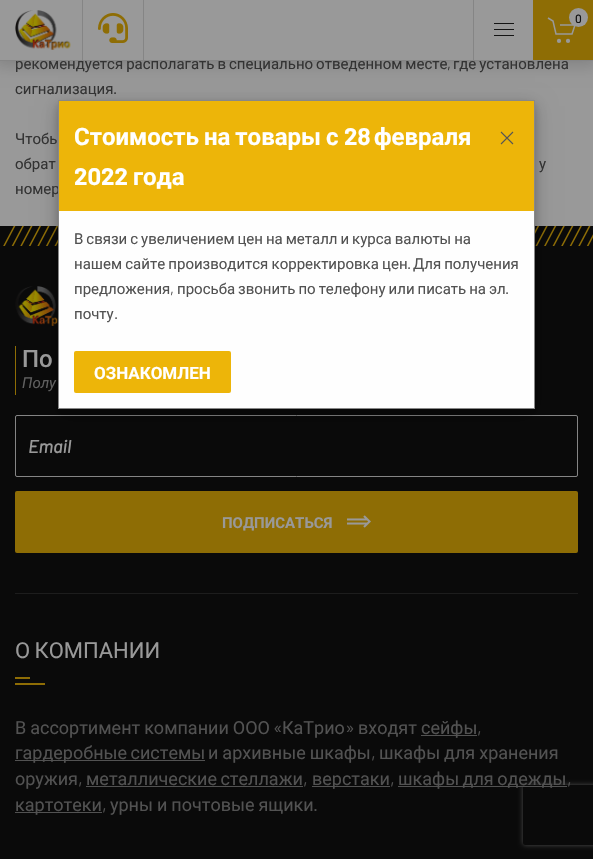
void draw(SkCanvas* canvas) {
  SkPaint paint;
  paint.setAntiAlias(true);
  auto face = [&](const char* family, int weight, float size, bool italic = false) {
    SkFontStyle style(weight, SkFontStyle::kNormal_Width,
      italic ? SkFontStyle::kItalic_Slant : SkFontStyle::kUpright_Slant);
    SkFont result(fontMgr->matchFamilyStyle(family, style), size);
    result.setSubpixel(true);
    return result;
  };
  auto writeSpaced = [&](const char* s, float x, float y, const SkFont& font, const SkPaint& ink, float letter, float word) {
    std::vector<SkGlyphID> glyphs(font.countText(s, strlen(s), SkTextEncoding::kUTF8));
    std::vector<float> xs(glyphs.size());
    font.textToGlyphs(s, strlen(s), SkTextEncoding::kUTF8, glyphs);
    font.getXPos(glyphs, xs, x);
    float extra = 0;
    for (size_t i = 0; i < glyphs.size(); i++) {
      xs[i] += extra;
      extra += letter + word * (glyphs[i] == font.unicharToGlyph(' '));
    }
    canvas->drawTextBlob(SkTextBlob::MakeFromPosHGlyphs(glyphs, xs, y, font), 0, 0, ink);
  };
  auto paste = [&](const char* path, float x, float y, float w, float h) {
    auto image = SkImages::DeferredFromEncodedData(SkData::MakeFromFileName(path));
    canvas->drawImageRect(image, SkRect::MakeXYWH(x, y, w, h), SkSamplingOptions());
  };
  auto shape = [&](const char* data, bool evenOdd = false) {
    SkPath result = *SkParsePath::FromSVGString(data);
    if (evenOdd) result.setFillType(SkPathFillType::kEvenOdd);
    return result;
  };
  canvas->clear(0xff999999);
  paint.setColor(0x26000000);
  paint.setMaskFilter(SkMaskFilter::MakeBlur(kNormal_SkBlurStyle, 7.5f));
  canvas->drawRect(SkRect::MakeXYWH(-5, -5, 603, 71), paint);
  paint.setMaskFilter(nullptr);
  paint.setColor(0xff999999);
  canvas->drawRect(SkRect::MakeXYWH(0, 0, 533, 60), paint);
  paste("img/1.png", 15, 10, 56, 40);
  paint.setColor(0xff858585);
  canvas->drawRect(SkRect::MakeXYWH(143, 0, 1, 60), paint);
  canvas->drawRect(SkRect::MakeXYWH(82, 0, 1, 60), paint);
  paste("img/2.png", 98, 13, 30, 30);
  {
    const struct { float x, y, w, h; SkColor color; } items[] = {
      {473, 0, 1, 60, 0xff858585},
      {494, 23, 20, 1, 0xff141414},
      {494, 29, 20, 1, 0xff141414},
      {494, 35, 20, 1, 0xff141414},
      {533, 0, 60, 60, 0xff8e6d05},
    };
    for (auto [x, y, w, h, color] : items) {
      paint.setColor(color);
      canvas->drawRect(SkRect::MakeXYWH(x, y, w, h), paint);
    }
  }
  paint.setColor(0xff999999);
  canvas->drawCircle(578.5f, 17.5f, 9.5f, paint);
  canvas->drawCircle(559, 40.9f, 2.1f, paint);
  canvas->drawCircle(568, 40.9f, 2.1f, paint);
  paint.setColor(0xff0a0a0a);
  canvas->drawRect(SkRect::MakeXYWH(0, 226, 593, 633), paint);
  paste("img/3.png", 3, 226, 590, 20);
  paste("img/4.png", 15, 286, 43, 40);
  paint.setColor(0xff8e6d05);
  canvas->drawRect(SkRect::MakeXYWH(15, 346, 1, 49), paint);
  paint.setStroke(true);
  paint.setStrokeWidth(1);
  paint.setColor(0xff858585);
  canvas->drawRoundRect(SkRect::MakeXYWH(15.5f, 415.5f, 562, 61), 1.5f, 1.5f, paint);
  paint.setStroke(false);
  paint.setColor(0xff8e6d05);
  canvas->drawRoundRect(SkRect::MakeXYWH(15, 491, 563, 62), 2, 2, paint);
  paste("img/5.png", 347, 515, 24, 13);
  paint.setColor(0xff1d1d1d);
  canvas->drawRect(SkRect::MakeXYWH(15, 593, 563, 1), paint);
  paint.setColor(0xff8e6d05);
  canvas->drawPath(shape("M15 683H45V685H15ZM15 677H30V679H15Z"), paint);
  {
    const struct { float x, y, w, h; SkColor color; } items[] = {
      {421, 735, 56, 1, 0xff525252},
      {15, 760, 190, 1, 0xff525252},
      {86, 786, 217, 1, 0xff525252},
      {312, 786, 78, 1, 0xff525252},
      {398, 786, 169, 1, 0xff525252},
      {15, 812, 87, 1, 0xff525252},
    };
    for (auto [x, y, w, h, color] : items) {
      paint.setColor(color);
      canvas->drawRect(SkRect::MakeXYWH(x, y, w, h), paint);
    }
  }
  paint.setColor(0x30000000);
  paint.setMaskFilter(SkMaskFilter::MakeBlur(kNormal_SkBlurStyle, 10));
  canvas->drawRect(SkRect::MakeXYWH(58, 106, 477, 309), paint);
  paint.setMaskFilter(nullptr);
  paint.setColor(0x33000000);
  paint.setMaskFilter(SkMaskFilter::MakeBlur(kNormal_SkBlurStyle, 4));
  canvas->drawRect(SkRect::MakeXYWH(58, 104, 477, 309), paint);
  paint.setMaskFilter(nullptr);
  paint.setColor(0xfffefefe);
  canvas->drawRect(SkRect::MakeXYWH(59, 211, 475, 197), paint);
  canvas->save();
  canvas->clipPath(shape("M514 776H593V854H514ZM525 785H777C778 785 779 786 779 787V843C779 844 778 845 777 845H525C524 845 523 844 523 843V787C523 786 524 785 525 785Z", true), true);
  paint.setColor(0xff4d4d4d);
  paint.setMaskFilter(SkMaskFilter::MakeBlur(kNormal_SkBlurStyle, 2.5f));
  canvas->drawRoundRect(SkRect::MakeXYWH(523, 785, 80, 60), 2, 2, paint);
  paint.setMaskFilter(nullptr);
  canvas->restore();
  auto f0 = face("Barlow", 500, 12);
  paint.setColor(0xff141414);
  canvas->drawString("0", 575, 23, f0, paint);
  paint.setStroke(true);
  paint.setStrokeWidth(1.5f);
  paint.setColor(0xff999999);
  canvas->drawPath(shape("M548 18L553 21L556 34H572L575 25H560"), paint);
  auto f1 = face("Roboto", 400, 15);
  paint.setStroke(false);
  paint.setColor(0xff333333);
  writeSpaced("рекомендуется располагать в специально отведенном месте", 15, 69, f1, paint, 0, -0.75f);
  auto f2 = face("Barlow", 400, 15);
  canvas->drawString(",", 447, 69, f2, paint);
  writeSpaced("где установлена", 453, 69, f1, paint, 0, -0.75f);
  paint.setColor(0xff858585);
  canvas->drawRect(SkRect::MakeXYWH(0, 60, 593, 1), paint);
  paint.setColor(0xff333333);
  canvas->drawString("сигнализация", 15, 94, f1, paint);
  canvas->drawString(".", 113, 94, f2, paint);
  writeSpaced("Чтобы", 15, 144, f1, paint, 0, -0.75f);
  writeSpaced("обрат", 15, 169, f1, paint, 0, -1);
  writeSpaced("у", 539, 169, f1, paint, 0, -1);
  writeSpaced("номер", 15, 194, f1, paint, 0, -0.75f);
  auto f3 = face("Roboto", 500, 24);
  paint.setColor(0xff999999);
  writeSpaced("По", 22, 367, f3, paint, 0, -1);
  auto f4 = face("Roboto", 400, 15, true);
  paint.setColor(0xff606060);
  writeSpaced("Полу", 22, 388, f4, paint, 0, -1);
  auto f5 = face("Barlow", 700, 18, true);
  paint.setColor(0xff999999);
  canvas->drawString("Email", 28, 453, f5, paint);
  auto f6 = face("Roboto", 700, 15);
  canvas->drawString("ПОДПИСАТЬСЯ", 222, 528, f6, paint);
  auto f7 = face("Roboto", 400, 22);
  writeSpaced("О КОМПАНИИ", 15, 658, f7, paint, 0, -1);
  auto f8 = face("Roboto", 400, 18);
  paint.setColor(0xff525252);
  writeSpaced("В ассортимент компании ООО", 15, 734, f8, paint, 0, -0.5f);
  auto f9 = face("Barlow", 400, 18);
  canvas->drawString("«", 273, 734, f9, paint);
  canvas->drawString("КаТрио", 282, 734, f8, paint);
  canvas->drawString("»", 345, 734, f9, paint);
  canvas->drawString("входят", 358, 734, f8, paint);
  canvas->drawString("сейфы", 421, 734, f8, paint);
  canvas->drawString(",", 477, 734, f9, paint);
  writeSpaced("гардеробные системы", 15, 759, f8, paint, 0, -1);
  writeSpaced("и архивные шкафы", 208, 759, f8, paint, 0, -0.5f);
  canvas->drawString(",", 371, 759, f9, paint);
  writeSpaced("шкафы для хранения", 379, 759, f8, paint, 0, -0.5f);
  canvas->drawString("оружия", 15, 785, f8, paint);
  canvas->drawString(",", 78, 785, f9, paint);
  writeSpaced("металлические стеллажи", 86, 785, f8, paint, 0, -1);
  canvas->drawString(",", 303, 785, f9, paint);
  canvas->drawString("верстаки", 312, 785, f8, paint);
  canvas->drawString(",", 390, 785, f9, paint);
  writeSpaced("шкафы для одежды", 398, 785, f8, paint, 0, -1);
  canvas->drawString(",", 567, 785, f9, paint);
  canvas->drawString("картотеки", 15, 811, f8, paint);
  canvas->drawString(",", 102, 811, f9, paint);
  writeSpaced("урны и почтовые ящики", 110, 811, f8, paint, 0, -0.5f);
  canvas->drawString(".", 313, 811, f9, paint);
  paint.setStroke(true);
  paint.setStrokeWidth(1);
  paint.setColor(0xff888888);
  canvas->drawRect(SkRect::MakeXYWH(58.5f, 100.5f, 476, 308), paint);
  paint.setStroke(false);
  paint.setColor(0xffedb509);
  canvas->drawRect(SkRect::MakeXYWH(59, 101, 475, 110), paint);
  auto f10 = face("Roboto", 700, 24);
  paint.setColor(0xffffffff);
  writeSpaced("Стоимость на товары с", 74, 145, f10, paint, 0, -1);
  auto f11 = face("Barlow", 700, 24);
  canvas->drawString("28", 344, 145, f11, paint);
  canvas->drawString("февраля", 374, 145, f10, paint);
  canvas->drawString("2022", 74, 185, f11, paint);
  canvas->drawString("года", 133, 185, f10, paint);
  paint.setStroke(true);
  paint.setStrokeWidth(1.1f);
  paint.setColor(0xff555555);
  canvas->drawPath(shape("M501 132L513 144M513 132L501 144"), paint);
  paint.setStroke(false);
  paint.setColor(0xff525252);
  writeSpaced("В связи с увеличением цен на металл и курса валюты на", 74, 244, f1, paint, 0, -0.75f);
  writeSpaced("нашем сайте производится корректировка цен", 74, 269, f1, paint, 0, -0.5f);
  canvas->drawString(".", 407, 269, f2, paint);
  writeSpaced("Для получения", 413, 269, f1, paint, 0, -0.75f);
  canvas->drawString("предложения", 74, 294, f1, paint);
  canvas->drawString(",", 170, 294, f2, paint);
  writeSpaced("просьба звонить по телефону или писать на эл", 177, 294, f1, paint, 0, -0.75f);
  canvas->drawString(".", 505, 294, f2, paint);
  canvas->drawString("почту", 74, 319, f1, paint);
  canvas->drawString(".", 114, 319, f2, paint);
  paint.setColor(0xffedb509);
  canvas->drawRoundRect(SkRect::MakeXYWH(74, 351, 157, 42), 2, 2, paint);
  auto f12 = face("Roboto", 700, 17);
  paint.setColor(0xffffffff);
  canvas->drawString("ОЗНАКОМЛЕН", 94, 379, f12, paint);
}
